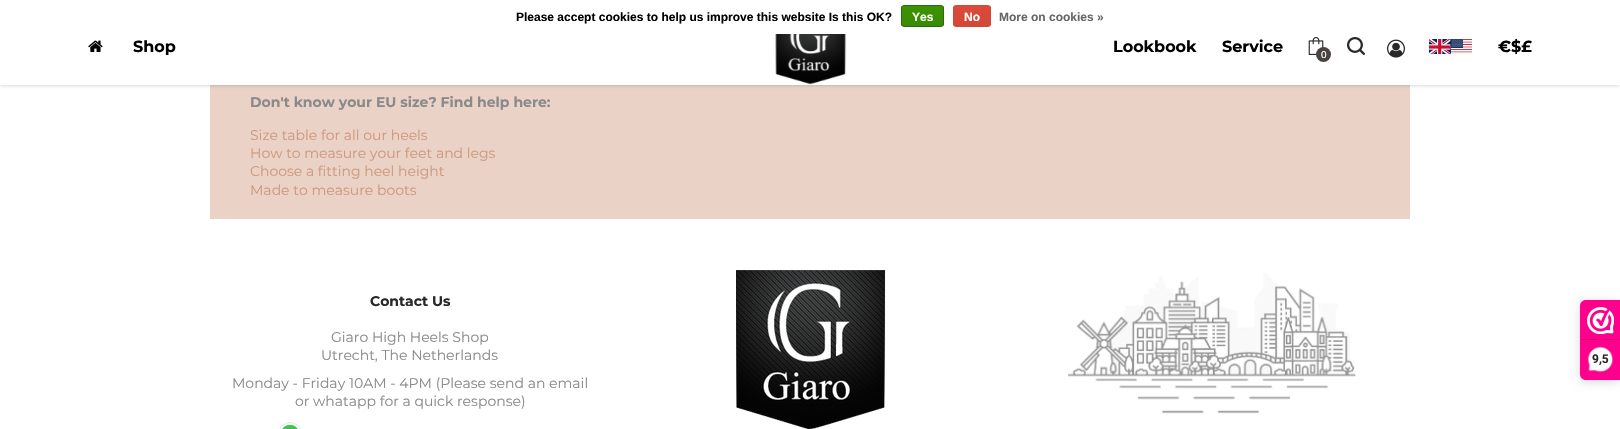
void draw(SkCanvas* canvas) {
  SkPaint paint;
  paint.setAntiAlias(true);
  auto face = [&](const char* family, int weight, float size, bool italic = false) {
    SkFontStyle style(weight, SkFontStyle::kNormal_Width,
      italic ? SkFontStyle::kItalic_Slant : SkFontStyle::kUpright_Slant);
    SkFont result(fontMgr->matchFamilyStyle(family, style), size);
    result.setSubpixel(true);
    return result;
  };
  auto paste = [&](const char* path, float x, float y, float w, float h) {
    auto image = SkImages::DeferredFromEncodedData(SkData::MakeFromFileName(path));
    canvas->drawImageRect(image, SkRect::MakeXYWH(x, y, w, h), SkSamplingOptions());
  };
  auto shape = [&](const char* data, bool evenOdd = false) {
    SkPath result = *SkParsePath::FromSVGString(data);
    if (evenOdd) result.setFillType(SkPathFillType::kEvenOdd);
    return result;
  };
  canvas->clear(0xffffffff);
  paint.setColor(0xffead2c7);
  canvas->drawRect(SkRect::MakeXYWH(210, 85, 1200, 134), paint);
  paint.setColor(0x24000000);
  paint.setMaskFilter(SkMaskFilter::MakeBlur(kNormal_SkBlurStyle, 1.5f));
  canvas->drawRect(SkRect::MakeXYWH(0, 1, 1620, 85), paint);
  paint.setMaskFilter(nullptr);
  paint.setColor(0xffffffff);
  canvas->drawRect(SkRect::MakeXYWH(0, 0, 1620, 85), paint);
  canvas->save();
  canvas->clipPath(shape("M904 5H941C942.5 5 944 6.5 944 8V24C944 25.5 942.5 27 941 27H904C902.5 27 901 25.5 901 24V8C901 6.5 902.5 5 904 5Z"), true);
  {
    const SkColor colors[] = {0xff3c9300, 0xff398a00};
    const float stops[] = {0, 1};
    const SkPoint ends[] = {{923, 6}, {923, 26}};
    paint.setShader(SkGradientShader::MakeLinear(ends, colors, stops, 2, SkTileMode::kClamp));
    paint.setAlpha(255);
  }
  canvas->drawRect(SkRect::MakeXYWH(901, 6, 43, 20), paint);
  canvas->restore();
  paint.setStroke(true);
  paint.setStrokeWidth(1);
  paint.setShader(nullptr);
  paint.setColor(0xff29691d);
  canvas->drawRoundRect(SkRect::MakeXYWH(901.5f, 5.5f, 42, 21), 2.5f, 2.5f, paint);
  canvas->save();
  canvas->clipPath(shape("M956 5H988C989.5 5 991 6.5 991 8V24C991 25.5 989.5 27 988 27H956C954.5 27 953 25.5 953 24V8C953 6.5 954.5 5 956 5Z"), true);
  paint.setStroke(false);
  {
    const SkColor colors[] = {0xffdc4a38, 0xffd14836};
    const float stops[] = {0, 1};
    const SkPoint ends[] = {{972, 6}, {972, 26}};
    paint.setShader(SkGradientShader::MakeLinear(ends, colors, stops, 2, SkTileMode::kClamp));
    paint.setAlpha(255);
  }
  canvas->drawRect(SkRect::MakeXYWH(953, 6, 38, 20), paint);
  canvas->restore();
  paint.setStroke(true);
  paint.setShader(nullptr);
  paint.setColor(0xffd14836);
  canvas->drawRoundRect(SkRect::MakeXYWH(953.5f, 5.5f, 37, 21), 2.5f, 2.5f, paint);
  paste("img/1.png", 88, 40, 15, 12);
  paste("img/2.png", 775, 34, 72, 51);
  paste("img/3.png", 1347, 37, 18, 18);
  paste("img/4.png", 1387, 39, 18, 19);
  paste("img/5.png", 1429, 39, 22, 15);
  paste("img/6.png", 1451, 39, 21, 15);
  paste("img/7.png", 1308, 37, 16, 18);
  paint.setStroke(false);
  paint.setColor(0xff4a4141);
  canvas->drawCircle(1323.5f, 54.5f, 7.5f, paint);
  paste("img/8.png", 279, 422, 22, 7);
  paste("img/9.png", 736, 270, 150, 159);
  paste("img/10.png", 1068, 273, 288, 141);
  paint.setColor(0x26000000);
  paint.setMaskFilter(SkMaskFilter::MakeBlur(kNormal_SkBlurStyle, 5));
  canvas->drawRoundRect(SkRect::MakeXYWH(1580, 302, 40, 80), 6, 6, paint);
  paint.setMaskFilter(nullptr);
  paint.setColor(0xfffe008c);
  canvas->drawPath(shape("M1586 300H1620V380H1586C1582.5 380 1580 377.5 1580 374V306C1580 302.5 1582.5 300 1586 300Z"), paint);
  paste("img/11.png", 1587, 307, 27, 27);
  paint.setColor(0xffd80077);
  canvas->drawRect(SkRect::MakeXYWH(1581, 339, 39, 1), paint);
  paste("img/12.png", 1587, 346, 26, 26);
  auto f0 = face("Liberation Sans", 700, 12);
  paint.setColor(0xff000000);
  canvas->drawString("Please accept cookies to help us improve this website Is this OK?", 516, 21, f0, paint);
  paint.setColor(0xffffffff);
  canvas->drawString("Yes", 912, 21, f0, paint);
  canvas->drawString("No", 964, 21, f0, paint);
  paint.setColor(0xff666666);
  canvas->drawString("More on cookies »", 999, 21, f0, paint);
  auto f1 = face("Montserrat", 700, 16);
  paint.setColor(0xff000000);
  {
    const struct { const char* s; float x, y; } items[] = {
      {"Shop", 133, 52},
      {"Lookbook", 1113, 52},
      {"Service", 1222, 52},
      {"€$£", 1498, 52},
    };
    for (auto [s, x, y] : items) {
      canvas->drawString(s, x, y, f1, paint);
    }
  }
  auto f2 = face("Liberation Sans", 400, 10);
  paint.setColor(0xffffffff);
  canvas->drawString("0", 1321, 58, f2, paint);
  auto f3 = face("Montserrat", 700, 14);
  paint.setColor(0xff8a8a8a);
  canvas->drawString("Don't know your EU size? Find help here:", 250, 107, f3, paint);
  auto f4 = face("Montserrat", 400, 14);
  paint.setColor(0xffcf987e);
  {
    const struct { const char* s; float x, y; } items[] = {
      {"Size table for all our heels", 250, 140},
      {"How to measure your feet and legs", 250, 158},
      {"Choose a fitting heel height", 250, 176},
      {"Made to measure boots", 250, 195},
    };
    for (auto [s, x, y] : items) {
      canvas->drawString(s, x, y, f4, paint);
    }
  }
  paint.setColor(0xff282828);
  canvas->drawString("Contact Us", 370, 306, f3, paint);
  paint.setColor(0xff8a8a8a);
  {
    const struct { const char* s; float x, y; } items[] = {
      {"Giaro High Heels Shop", 331, 342},
      {"Utrecht, The Netherlands", 321, 360},
      {"Monday - Friday 10AM - 4PM (Please send an email", 232, 388},
      {"or whatapp for a quick response)", 295, 406},
    };
    for (auto [s, x, y] : items) {
      canvas->drawString(s, x, y, f4, paint);
    }
  }
  auto f5 = face("Roboto", 700, 12);
  paint.setColor(0xff282828);
  canvas->drawString("9,5", 1592, 363, f5, paint);
}
